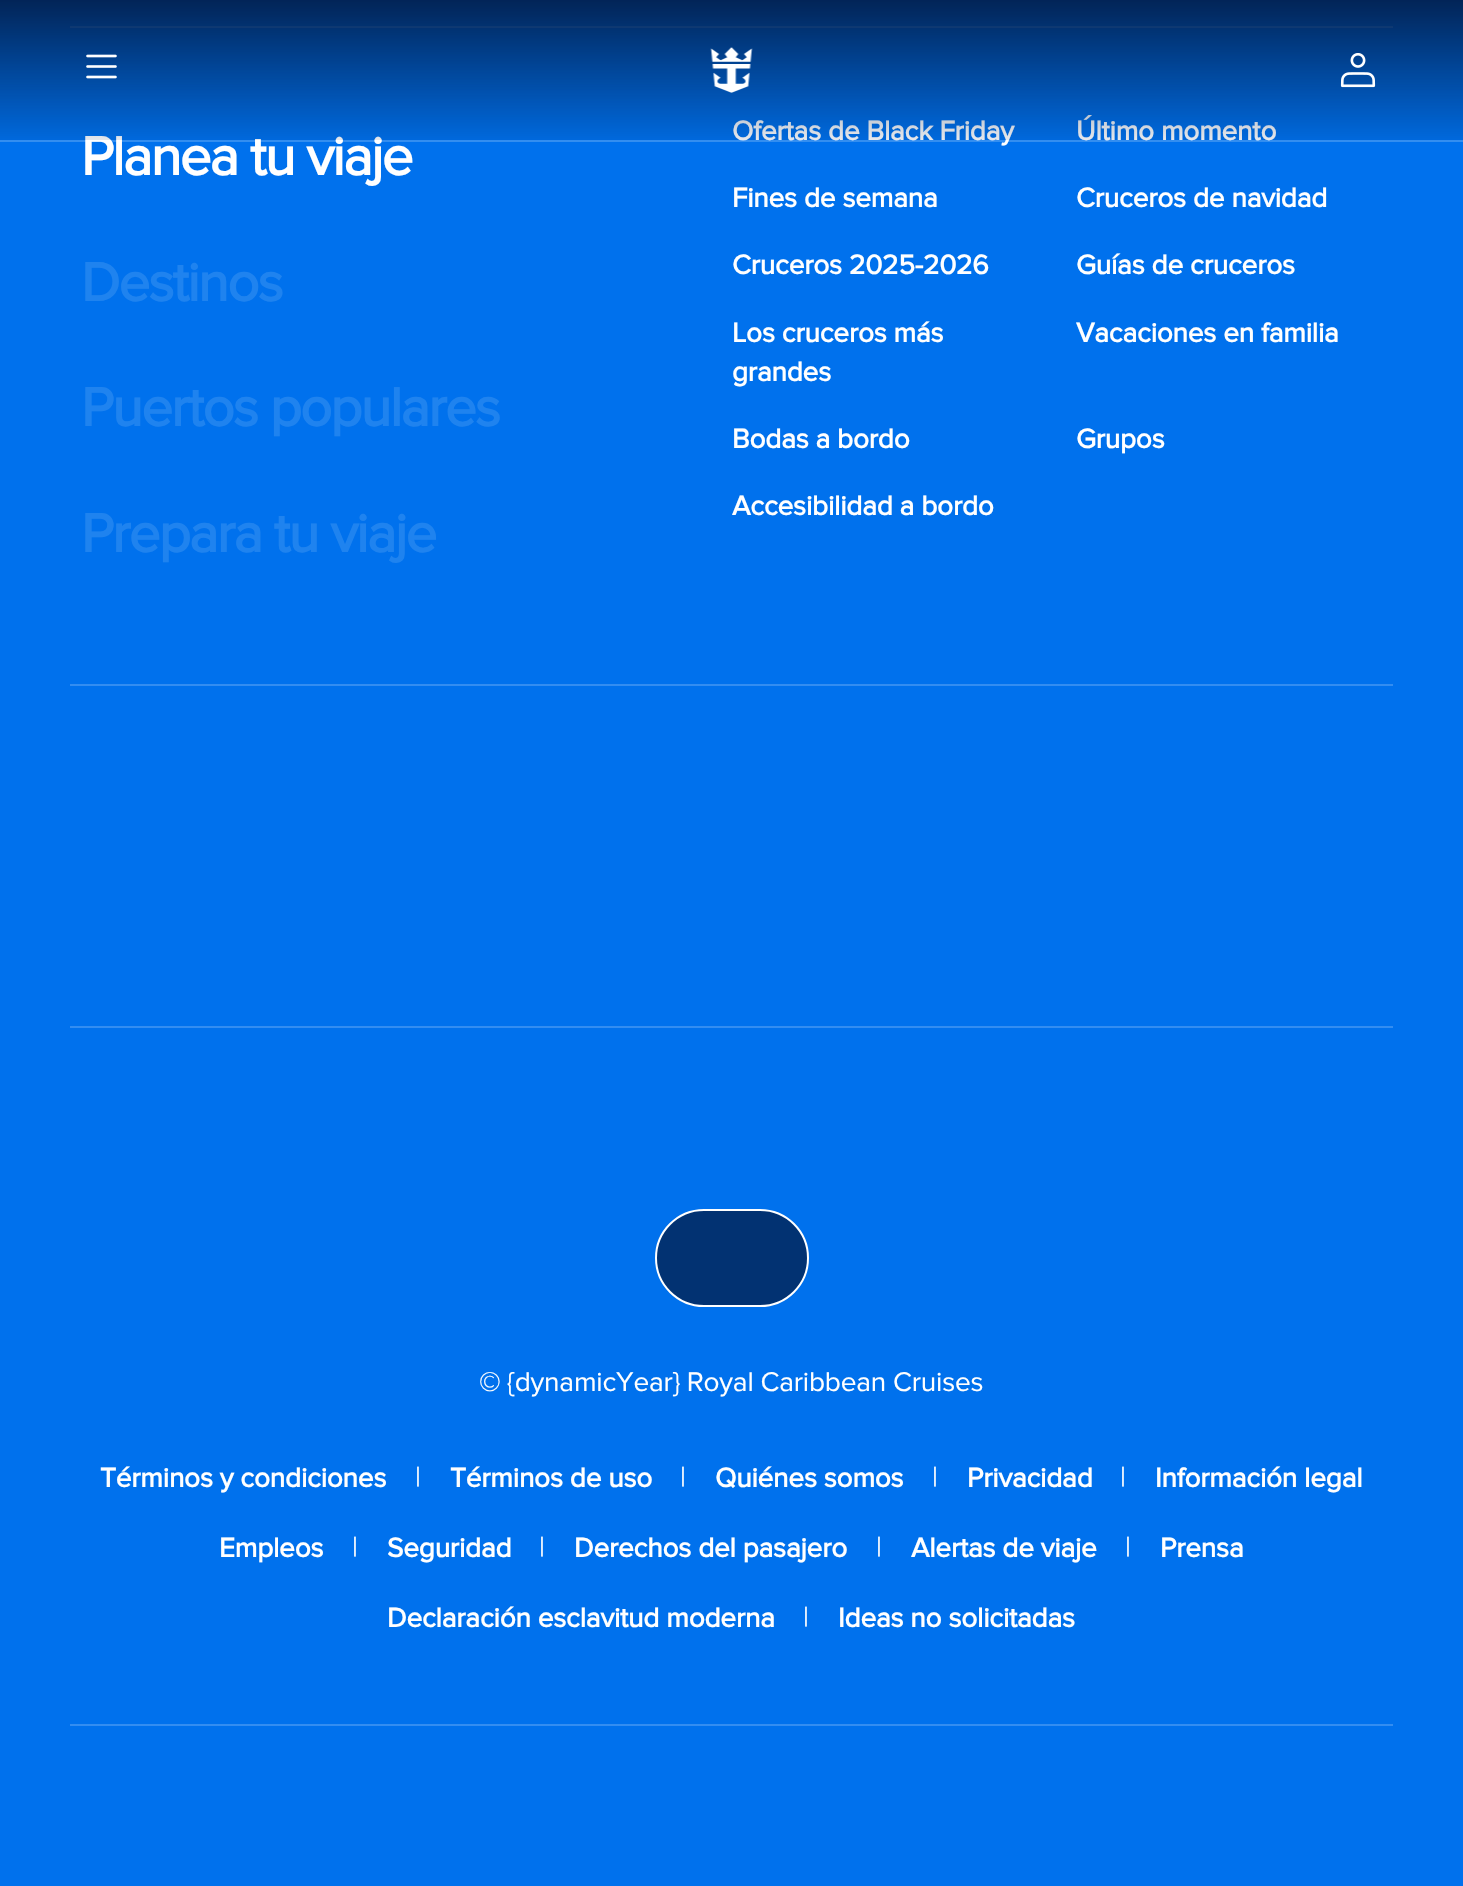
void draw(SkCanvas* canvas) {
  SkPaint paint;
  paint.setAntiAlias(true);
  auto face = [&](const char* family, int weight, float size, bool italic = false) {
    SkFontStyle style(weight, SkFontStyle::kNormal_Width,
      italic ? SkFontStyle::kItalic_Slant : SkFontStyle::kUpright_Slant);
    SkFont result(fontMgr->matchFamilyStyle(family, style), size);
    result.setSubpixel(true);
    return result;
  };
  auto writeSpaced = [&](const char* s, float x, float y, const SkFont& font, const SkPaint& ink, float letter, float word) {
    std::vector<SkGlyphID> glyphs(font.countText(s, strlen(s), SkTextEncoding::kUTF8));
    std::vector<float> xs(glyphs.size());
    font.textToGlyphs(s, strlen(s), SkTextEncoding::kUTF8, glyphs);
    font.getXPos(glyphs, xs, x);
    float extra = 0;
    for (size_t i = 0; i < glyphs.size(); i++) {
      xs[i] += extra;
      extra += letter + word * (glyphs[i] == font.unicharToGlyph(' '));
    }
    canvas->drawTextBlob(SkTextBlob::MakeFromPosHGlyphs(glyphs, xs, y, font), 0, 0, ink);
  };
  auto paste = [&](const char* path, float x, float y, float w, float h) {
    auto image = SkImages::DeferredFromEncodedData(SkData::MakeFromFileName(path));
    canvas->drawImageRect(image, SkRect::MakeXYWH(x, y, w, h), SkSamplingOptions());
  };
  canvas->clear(0xff0071ed);
  {
    const struct { float x, y, w, h; SkColor color; } items[] = {
      {70, 26, 1323, 2, 0xff338df1},
      {70, 684, 1323, 2, 0xff338df1},
      {70, 1026, 1323, 2, 0xff338df1},
    };
    for (auto [x, y, w, h, color] : items) {
      paint.setColor(color);
      canvas->drawRect(SkRect::MakeXYWH(x, y, w, h), paint);
    }
  }
  paint.setColor(0xff023272);
  canvas->drawRoundRect(SkRect::MakeXYWH(656, 1210, 152, 96), 48, 48, paint);
  paint.setStroke(true);
  paint.setStrokeWidth(2);
  paint.setColor(0xffffffff);
  canvas->drawRoundRect(SkRect::MakeXYWH(656, 1210, 152, 96), 48, 48, paint);
  paint.setStroke(false);
  paint.setColor(0xff338df1);
  canvas->drawRect(SkRect::MakeXYWH(70, 1724, 1323, 2), paint);
  auto f0 = face("Proxima Nova", 700, 56);
  paint.setColor(0xffffffff);
  writeSpaced("Planea tu viaje", 81, 175, f0, paint, -1.75f, 0);
  paint.setColor(0xff1f83ef);
  {
    const struct { const char* s; float x, y; } items[] = {
      {"Destinos", 81, 301},
      {"Puertos populares", 81, 426},
      {"Prepara tu viaje", 81, 552},
    };
    for (auto [s, x, y] : items) {
      writeSpaced(s, x, y, f0, paint, -1.75f, 0);
    }
  }
  auto f1 = face("Proxima Nova", 700, 28);
  paint.setColor(0xffffffff);
  writeSpaced("Ofertas de Black Friday", 732, 140, f1, paint, -0.2f, 0);
  writeSpaced("Último momento", 1076, 140, f1, paint, -0.2f, 0);
  {
    const SkColor colors[] = {0x1a021d49, 0xff021d49};
    const float stops[] = {0, 1};
    const SkPoint ends[] = {{732, 140}, {732, -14}};
    paint.setShader(SkGradientShader::MakeLinear(ends, colors, stops, 2, SkTileMode::kClamp));
    paint.setAlpha(255);
  }
  canvas->drawRect(SkRect::MakeXYWH(0, 0, 1463, 140), paint);
  paste("img/3.png", 1340, 53, 36, 35);
  paste("img/1.png", 86, 54, 31, 25);
  paste("img/2.png", 710, 47, 43, 46);
  paint.setShader(nullptr);
  paint.setColor(0x33ffffff);
  canvas->drawRect(SkRect::MakeXYWH(0, 140, 1463, 2), paint);
  paint.setColor(0xffffffff);
  {
    const struct { const char* s; float x, y; } items[] = {
      {"Fines de semana", 732, 207},
      {"Cruceros de navidad", 1076, 207},
      {"Cruceros 2025-2026", 732, 274},
      {"Guías de cruceros", 1076, 274},
      {"Los cruceros más", 732, 342},
      {"grandes", 732, 381},
      {"Vacaciones en familia", 1076, 342},
      {"Bodas a bordo", 732, 448},
      {"Grupos", 1076, 448},
      {"Accesibilidad a bordo", 732, 515},
    };
    for (auto [s, x, y] : items) {
      writeSpaced(s, x, y, f1, paint, -0.2f, 0);
    }
  }
  auto f2 = face("Proxima Nova", 400, 28);
  writeSpaced("© {dynamicYear} Royal Caribbean Cruises", 479, 1391, f2, paint, -0.2f, 0);
  writeSpaced("Términos y condiciones", 100, 1487, f1, paint, -0.2f, 0);
  canvas->drawString("|", 415, 1486, f2, paint);
  writeSpaced("Términos de uso", 450, 1487, f1, paint, -0.2f, 0);
  canvas->drawString("|", 680, 1486, f2, paint);
  writeSpaced("Quiénes somos", 715, 1487, f1, paint, -0.2f, 0);
  canvas->drawString("|", 932, 1486, f2, paint);
  writeSpaced("Privacidad", 967, 1487, f1, paint, -0.2f, 0);
  canvas->drawString("|", 1120, 1486, f2, paint);
  writeSpaced("Información legal", 1155, 1487, f1, paint, -0.2f, 0);
  writeSpaced("Empleos", 219, 1557, f1, paint, -0.2f, 0);
  canvas->drawString("|", 352, 1556, f2, paint);
  writeSpaced("Seguridad", 387, 1557, f1, paint, -0.2f, 0);
  canvas->drawString("|", 539, 1556, f2, paint);
  writeSpaced("Derechos del pasajero", 574, 1557, f1, paint, -0.2f, 0);
  canvas->drawString("|", 876, 1556, f2, paint);
  writeSpaced("Alertas de viaje", 911, 1557, f1, paint, -0.2f, 0);
  canvas->drawString("|", 1125, 1556, f2, paint);
  writeSpaced("Prensa", 1160, 1557, f1, paint, -0.2f, 0);
  writeSpaced("Declaración esclavitud moderna", 387, 1627, f1, paint, -0.2f, 0);
  canvas->drawString("|", 803, 1626, f2, paint);
  writeSpaced("Ideas no solicitadas", 838, 1627, f1, paint, -0.2f, 0);
}
